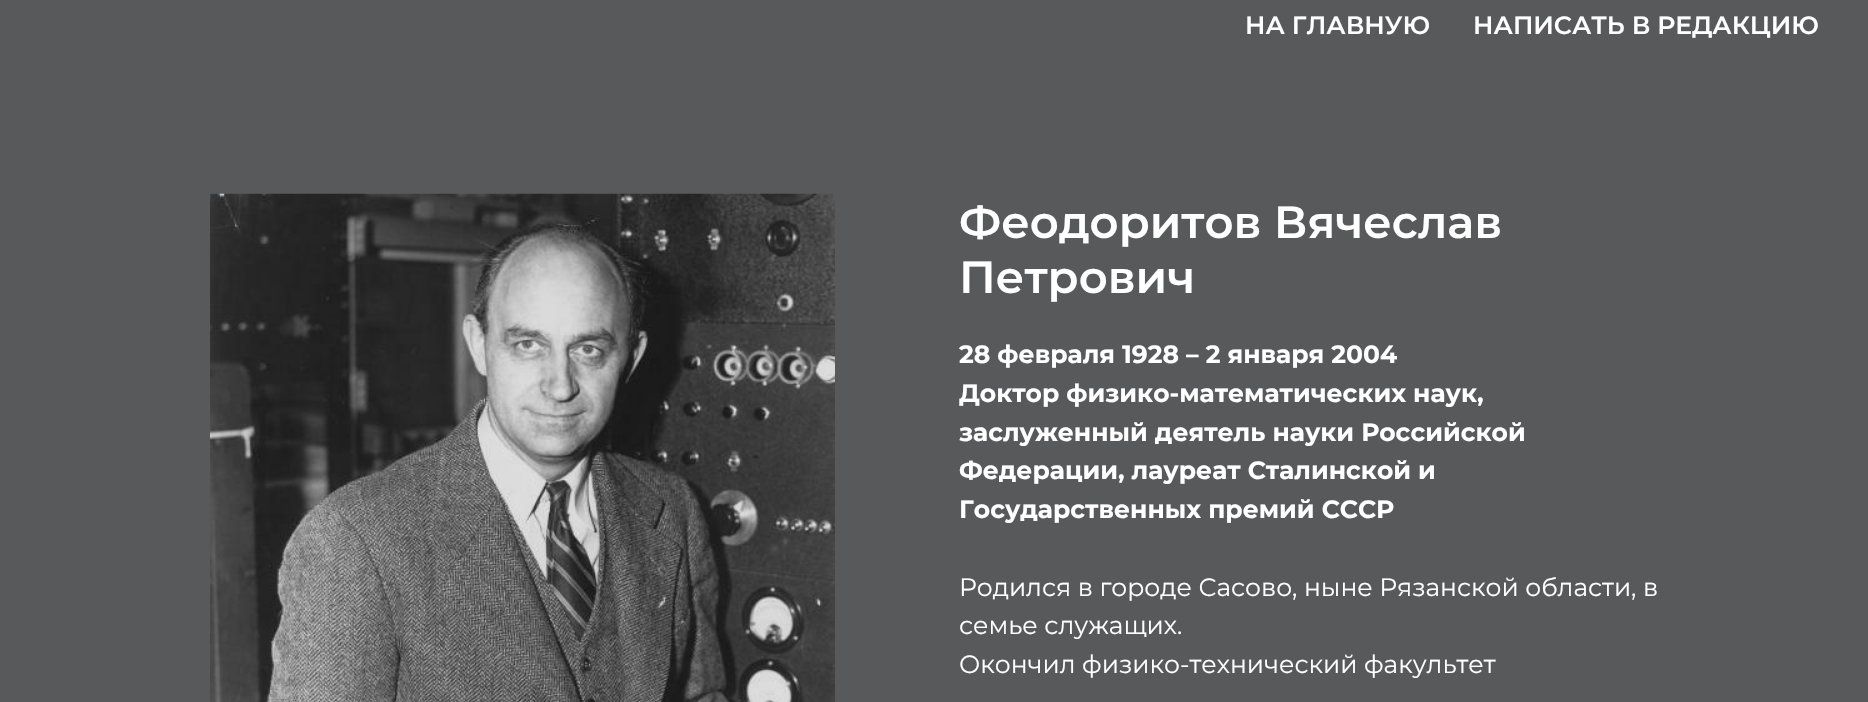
void draw(SkCanvas* canvas) {
  SkPaint paint;
  paint.setAntiAlias(true);
  auto face = [&](const char* family, int weight, float size, bool italic = false) {
    SkFontStyle style(weight, SkFontStyle::kNormal_Width,
      italic ? SkFontStyle::kItalic_Slant : SkFontStyle::kUpright_Slant);
    SkFont result(fontMgr->matchFamilyStyle(family, style), size);
    result.setSubpixel(true);
    return result;
  };
  auto paste = [&](const char* path, float x, float y, float w, float h) {
    auto image = SkImages::DeferredFromEncodedData(SkData::MakeFromFileName(path));
    canvas->drawImageRect(image, SkRect::MakeXYWH(x, y, w, h), SkSamplingOptions());
  };
  canvas->clear(0xff58595b);
  paste("img/1.png", 210, 193, 625, 509);
  auto f0 = face("Montserrat", 600, 25);
  paint.setColor(0xffffffff);
  canvas->drawString("НА ГЛАВНУЮ", 1245, 34, f0, paint);
  canvas->drawString("НАПИСАТЬ В РЕДАКЦИЮ", 1473, 34, f0, paint);
  auto f1 = face("Montserrat", 600, 45);
  canvas->drawString("Феодоритов Вячеслав", 959, 238, f1, paint);
  canvas->drawString("Петрович", 959, 293, f1, paint);
  auto f2 = face("Montserrat", 700, 25);
  {
    const struct { const char* s; float x, y; } items[] = {
      {"28 февраля 1928 – 2 января 2004", 959, 363},
      {"Доктор физико-математических наук,", 959, 402},
      {"заслуженный деятель науки Российской", 959, 441},
      {"Федерации, лауреат Сталинской и", 959, 479},
      {"Государственных премий СССР", 959, 518},
    };
    for (auto [s, x, y] : items) {
      canvas->drawString(s, x, y, f2, paint);
    }
  }
  auto f3 = face("Montserrat", 400, 25);
  {
    const struct { const char* s; float x, y; } items[] = {
      {"Родился в городе Сасово, ныне Рязанской области, в", 959, 596},
      {"семье служащих.", 959, 634},
      {"Окончил физико-технический факультет", 959, 673},
    };
    for (auto [s, x, y] : items) {
      canvas->drawString(s, x, y, f3, paint);
    }
  }
}
